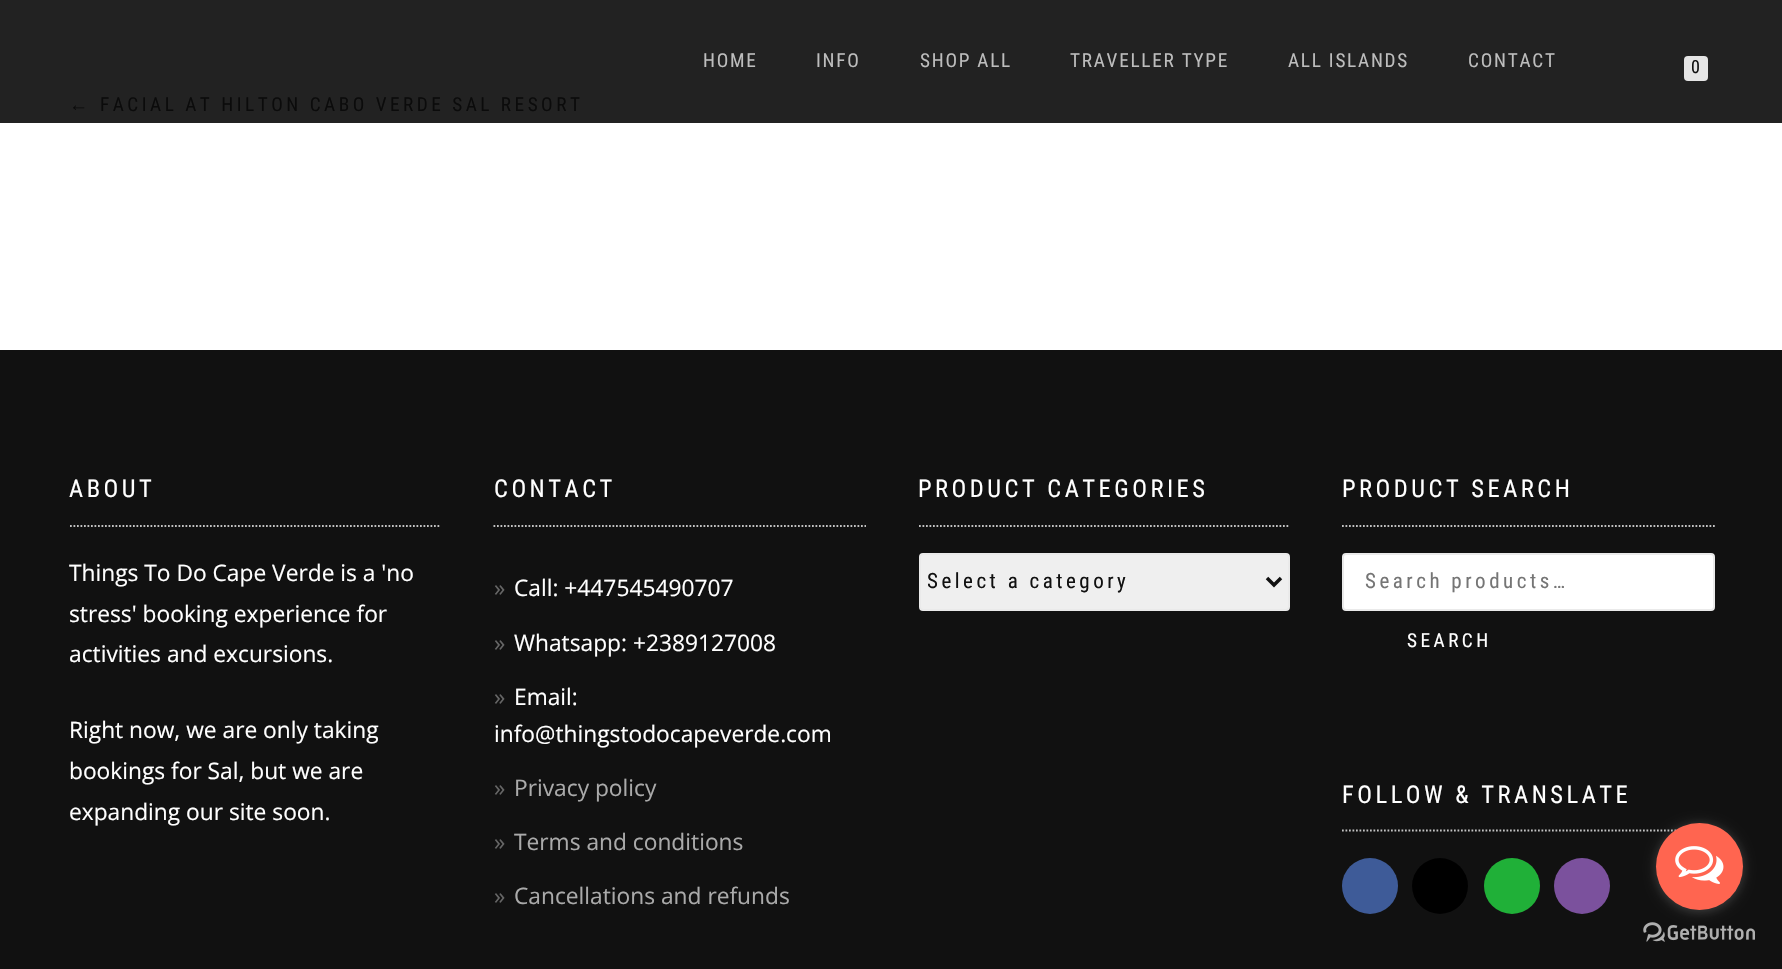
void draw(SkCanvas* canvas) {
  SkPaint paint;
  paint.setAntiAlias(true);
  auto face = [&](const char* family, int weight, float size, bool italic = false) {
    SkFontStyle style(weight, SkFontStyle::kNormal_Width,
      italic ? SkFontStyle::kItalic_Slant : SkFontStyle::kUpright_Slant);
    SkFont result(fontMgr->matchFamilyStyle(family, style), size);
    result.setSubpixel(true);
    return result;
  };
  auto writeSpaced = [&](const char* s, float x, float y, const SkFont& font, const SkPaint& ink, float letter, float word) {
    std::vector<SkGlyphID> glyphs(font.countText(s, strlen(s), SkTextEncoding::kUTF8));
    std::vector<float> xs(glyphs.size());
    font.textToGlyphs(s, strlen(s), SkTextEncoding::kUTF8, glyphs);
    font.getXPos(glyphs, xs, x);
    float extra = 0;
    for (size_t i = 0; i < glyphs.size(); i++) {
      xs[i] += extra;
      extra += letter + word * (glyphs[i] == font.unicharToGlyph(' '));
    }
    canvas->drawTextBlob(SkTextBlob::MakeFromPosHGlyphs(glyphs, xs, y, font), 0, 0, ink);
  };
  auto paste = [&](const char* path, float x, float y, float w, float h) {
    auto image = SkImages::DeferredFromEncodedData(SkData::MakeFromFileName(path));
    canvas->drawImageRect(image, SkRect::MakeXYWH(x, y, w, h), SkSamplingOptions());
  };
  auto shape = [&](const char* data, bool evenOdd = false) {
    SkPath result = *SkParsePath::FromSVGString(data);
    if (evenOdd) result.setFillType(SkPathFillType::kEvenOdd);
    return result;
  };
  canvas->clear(0xffffffff);
  paint.setColor(0xff222222);
  canvas->drawRect(SkRect::MakeXYWH(0, 0, 1782, 123), paint);
  paint.setColor(0xffe5e5e5);
  canvas->drawRoundRect(SkRect::MakeXYWH(1684, 56, 24, 25), 4, 4, paint);
  paint.setColor(0xff111111);
  canvas->drawRect(SkRect::MakeXYWH(0, 350, 1782, 619), paint);
  paint.setStroke(true);
  paint.setStrokeWidth(1.8f);
  paint.setColor(0xffc2c2c2);
  paint.setPathEffect(SkDashPathEffect::Make({{1.75f, 1.75f}}, 0));
  canvas->drawPath(shape("M70 526H441"), paint);
  paint.setPathEffect(nullptr);
  paint.setPathEffect(SkDashPathEffect::Make({{1.75f, 1.75f}}, 0));
  canvas->drawPath(shape("M493.5 526H866"), paint);
  paint.setPathEffect(nullptr);
  paint.setPathEffect(SkDashPathEffect::Make({{1.75f, 1.75f}}, 0));
  canvas->drawPath(shape("M919 526H1290"), paint);
  paint.setPathEffect(nullptr);
  paint.setStroke(false);
  paint.setColor(0xffefefef);
  canvas->drawRoundRect(SkRect::MakeXYWH(920, 554, 369, 56), 3, 3, paint);
  paint.setStroke(true);
  paint.setStrokeWidth(2);
  paint.setColor(0xffeaeaea);
  canvas->drawRoundRect(SkRect::MakeXYWH(920, 554, 369, 56), 3, 3, paint);
  paint.setStrokeWidth(3.5f);
  paint.setColor(0xff111111);
  canvas->drawPath(shape("M1267 578L1274 585L1281 578"), paint);
  paint.setStrokeWidth(1.8f);
  paint.setColor(0xffc2c2c2);
  paint.setPathEffect(SkDashPathEffect::Make({{1.75f, 1.75f}}, 0));
  canvas->drawPath(shape("M1342 526H1715"), paint);
  paint.setPathEffect(nullptr);
  paint.setStroke(false);
  paint.setColor(0xffffffff);
  canvas->drawRoundRect(SkRect::MakeXYWH(1343, 554, 371, 56), 3, 3, paint);
  paint.setStroke(true);
  paint.setStrokeWidth(2);
  paint.setColor(0xffeaeaea);
  canvas->drawRoundRect(SkRect::MakeXYWH(1343, 554, 371, 56), 3, 3, paint);
  paint.setStrokeWidth(1.8f);
  paint.setColor(0xffc2c2c2);
  paint.setPathEffect(SkDashPathEffect::Make({{1.75f, 1.75f}}, 0));
  canvas->drawPath(shape("M1342 830.5H1715"), paint);
  paint.setPathEffect(nullptr);
  paint.setStroke(false);
  paint.setColor(0xff3e5b98);
  canvas->drawCircle(1370, 886, 28, paint);
  paint.setColor(0xff000000);
  canvas->drawCircle(1440, 886, 28, paint);
  paint.setColor(0xff20b038);
  canvas->drawCircle(1512, 886, 28, paint);
  paint.setColor(0xff7b519d);
  canvas->drawCircle(1582, 886, 28, paint);
  paste("img/2.png", 1643, 922, 112, 20);
  paint.setColor(0x66888888);
  paint.setMaskFilter(SkMaskFilter::MakeBlur(kNormal_SkBlurStyle, 6));
  canvas->drawRoundRect(SkRect::MakeXYWH(1656, 824, 87, 88), 43.5f, 43.5f, paint);
  paint.setMaskFilter(nullptr);
  paint.setColor(0xffff6550);
  canvas->drawCircle(1699.5f, 866.5f, 43.5f, paint);
  paste("img/1.png", 1675, 846, 49, 38);
  auto f0 = face("Roboto Condensed", 400, 19.25f);
  paint.setColor(0xffbdbdbd);
  {
    const struct { const char* s; float x, y; } items[] = {
      {"HOME", 703, 67},
      {"INFO", 816, 67},
      {"SHOP ALL", 920, 67},
      {"TRAVELLER TYPE", 1070, 67},
      {"ALL ISLANDS", 1288, 67},
      {"CONTACT", 1468, 67},
    };
    for (auto [s, x, y] : items) {
      writeSpaced(s, x, y, f0, paint, 1.75f, 0);
    }
  }
  auto f1 = face("Roboto Condensed", 400, 18);
  paint.setColor(0xff111111);
  canvas->drawString("0", 1691, 73, f1, paint);
  auto f2 = face("Liberation Sans", 400, 19.25f);
  paint.setColor(0xff0b0b0b);
  writeSpaced("←", 69, 111, f2, paint, 3.5f, 0);
  writeSpaced("FACIAL AT HILTON CABO VERDE SAL RESORT", 100, 111, f0, paint, 3.5f, 0);
  auto f3 = face("Roboto Condensed", 400, 24.5f);
  paint.setColor(0xffffffff);
  writeSpaced("ABOUT", 69, 497, f3, paint, 3.5f, 0);
  auto f4 = face("Open Sans", 400, 22.75f);
  {
    const struct { const char* s; float x, y; } items[] = {
      {"Things To Do Cape Verde is a 'no", 69, 581},
      {"stress' booking experience for", 69, 622},
      {"activities and excursions.", 69, 662},
      {"Right now, we are only taking", 69, 738},
      {"bookings for Sal, but we are", 69, 779},
      {"expanding our site soon.", 69, 820},
    };
    for (auto [s, x, y] : items) {
      canvas->drawString(s, x, y, f4, paint);
    }
  }
  writeSpaced("CONTACT", 494, 497, f3, paint, 3.5f, 0);
  paint.setColor(0xff666666);
  canvas->drawString("»", 494, 596, f4, paint);
  paint.setColor(0xffffffff);
  canvas->drawString("Call: +447545490707", 514, 596, f4, paint);
  paint.setColor(0xff666666);
  canvas->drawString("»", 494, 651, f4, paint);
  paint.setColor(0xffffffff);
  canvas->drawString("Whatsapp: +2389127008", 514, 651, f4, paint);
  paint.setColor(0xff666666);
  canvas->drawString("»", 494, 705, f4, paint);
  paint.setColor(0xffffffff);
  canvas->drawString("Email:", 514, 705, f4, paint);
  canvas->drawString("info@thingstodocapeverde.com", 494, 742, f4, paint);
  paint.setColor(0xff666666);
  canvas->drawString("»", 494, 796, f4, paint);
  paint.setColor(0xffaaaaaa);
  canvas->drawString("Privacy policy", 514, 796, f4, paint);
  paint.setColor(0xff666666);
  canvas->drawString("»", 494, 850, f4, paint);
  paint.setColor(0xffaaaaaa);
  canvas->drawString("Terms and conditions", 514, 850, f4, paint);
  paint.setColor(0xff666666);
  canvas->drawString("»", 494, 904, f4, paint);
  paint.setColor(0xffaaaaaa);
  canvas->drawString("Cancellations and refunds", 514, 904, f4, paint);
  paint.setColor(0xffffffff);
  writeSpaced("PRODUCT CATEGORIES", 918, 497, f3, paint, 3.5f, 0);
  canvas->save();
  canvas->clipRect(SkRect::MakeXYWH(928, 567, 332, 28));
  auto f5 = face("Roboto Condensed", 400, 21);
  paint.setColor(0xff111111);
  writeSpaced("Select a category", 927, 588, f5, paint, 3.5f, 0);
  canvas->restore();
  paint.setColor(0xffffffff);
  writeSpaced("PRODUCT SEARCH", 1342, 497, f3, paint, 3.5f, 0);
  paint.setColor(0xff757575);
  writeSpaced("Search products…", 1365, 588, f5, paint, 3.5f, 0);
  paint.setColor(0xffffffff);
  writeSpaced("SEARCH", 1407, 647, f0, paint, 3.5f, 0);
  writeSpaced("FOLLOW & TRANSLATE", 1342, 803, f3, paint, 3.5f, 0);
}
